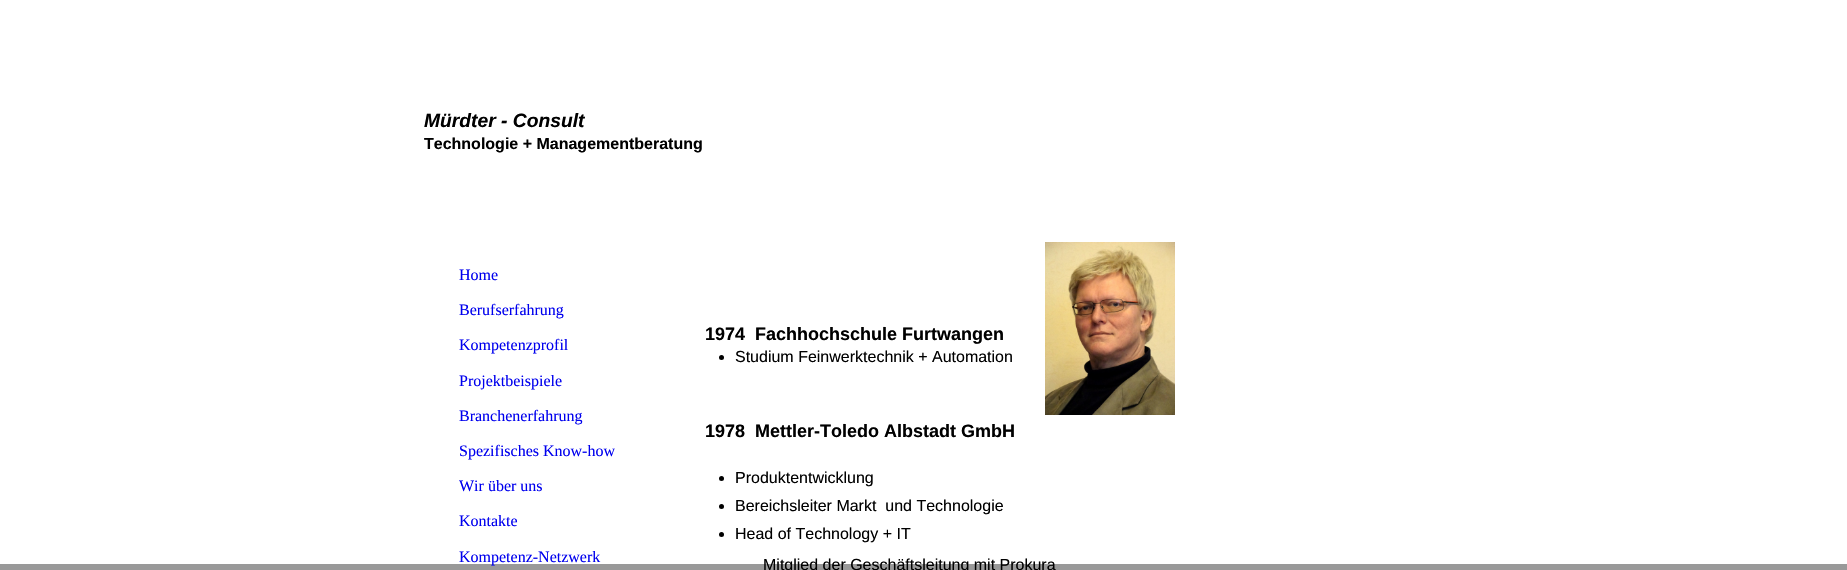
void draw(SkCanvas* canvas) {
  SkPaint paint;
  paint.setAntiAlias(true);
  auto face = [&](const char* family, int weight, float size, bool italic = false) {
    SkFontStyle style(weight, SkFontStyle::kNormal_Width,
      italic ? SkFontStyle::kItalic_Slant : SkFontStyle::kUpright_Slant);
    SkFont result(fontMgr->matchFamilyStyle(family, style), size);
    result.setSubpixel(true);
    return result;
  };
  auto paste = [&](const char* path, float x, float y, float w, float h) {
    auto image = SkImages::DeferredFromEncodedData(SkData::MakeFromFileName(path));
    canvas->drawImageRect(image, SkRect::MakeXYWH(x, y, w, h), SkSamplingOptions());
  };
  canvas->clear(0xffffffff);
  paint.setColor(0xff999999);
  canvas->drawRect(SkRect::MakeXYWH(0, 564, 1847, 6), paint);
  paste("img/1.png", 1045, 242, 130, 173);
  paint.setColor(0xff000000);
  canvas->drawCircle(721.5f, 357.5f, 2.5f, paint);
  canvas->drawCircle(721.5f, 478.5f, 2.5f, paint);
  canvas->drawCircle(721.5f, 506.5f, 2.5f, paint);
  canvas->drawCircle(721.5f, 534.5f, 2.5f, paint);
  auto f0 = face("Liberation Sans", 700, 19.25f, true);
  canvas->drawString("Mürdter - Consult", 424, 127, f0, paint);
  auto f1 = face("Liberation Sans", 700, 16);
  canvas->drawString("Technologie + Managementberatung", 424, 149, f1, paint);
  auto f2 = face("Liberation Serif", 400, 16);
  paint.setColor(0xff0000ee);
  {
    const struct { const char* s; float x, y; } items[] = {
      {"Home", 459, 280},
      {"Berufserfahrung", 459, 315},
      {"Kompetenzprofil", 459, 350},
      {"Projektbeispiele", 459, 386},
      {"Branchenerfahrung", 459, 421},
      {"Spezifisches Know-how", 459, 456},
      {"Wir über uns", 459, 491},
      {"Kontakte", 459, 526},
      {"Kompetenz-Netzwerk", 459, 562},
    };
    for (auto [s, x, y] : items) {
      canvas->drawString(s, x, y, f2, paint);
    }
  }
  auto f3 = face("Liberation Sans", 700, 18);
  paint.setColor(0xff000000);
  canvas->drawString("1974  Fachhochschule Furtwangen", 705, 340, f3, paint);
  auto f4 = face("Liberation Sans", 400, 16);
  canvas->drawString("Studium Feinwerktechnik + Automation", 735, 362, f4, paint);
  canvas->drawString("1978  Mettler-Toledo Albstadt GmbH", 705, 437, f3, paint);
  {
    const struct { const char* s; float x, y; } items[] = {
      {"Produktentwicklung", 735, 483},
      {"Bereichsleiter Markt  und Technologie", 735, 511},
      {"Head of Technology + IT", 735, 539},
      {"Mitglied der Geschäftsleitung mit Prokura", 763, 570},
    };
    for (auto [s, x, y] : items) {
      canvas->drawString(s, x, y, f4, paint);
    }
  }
}
